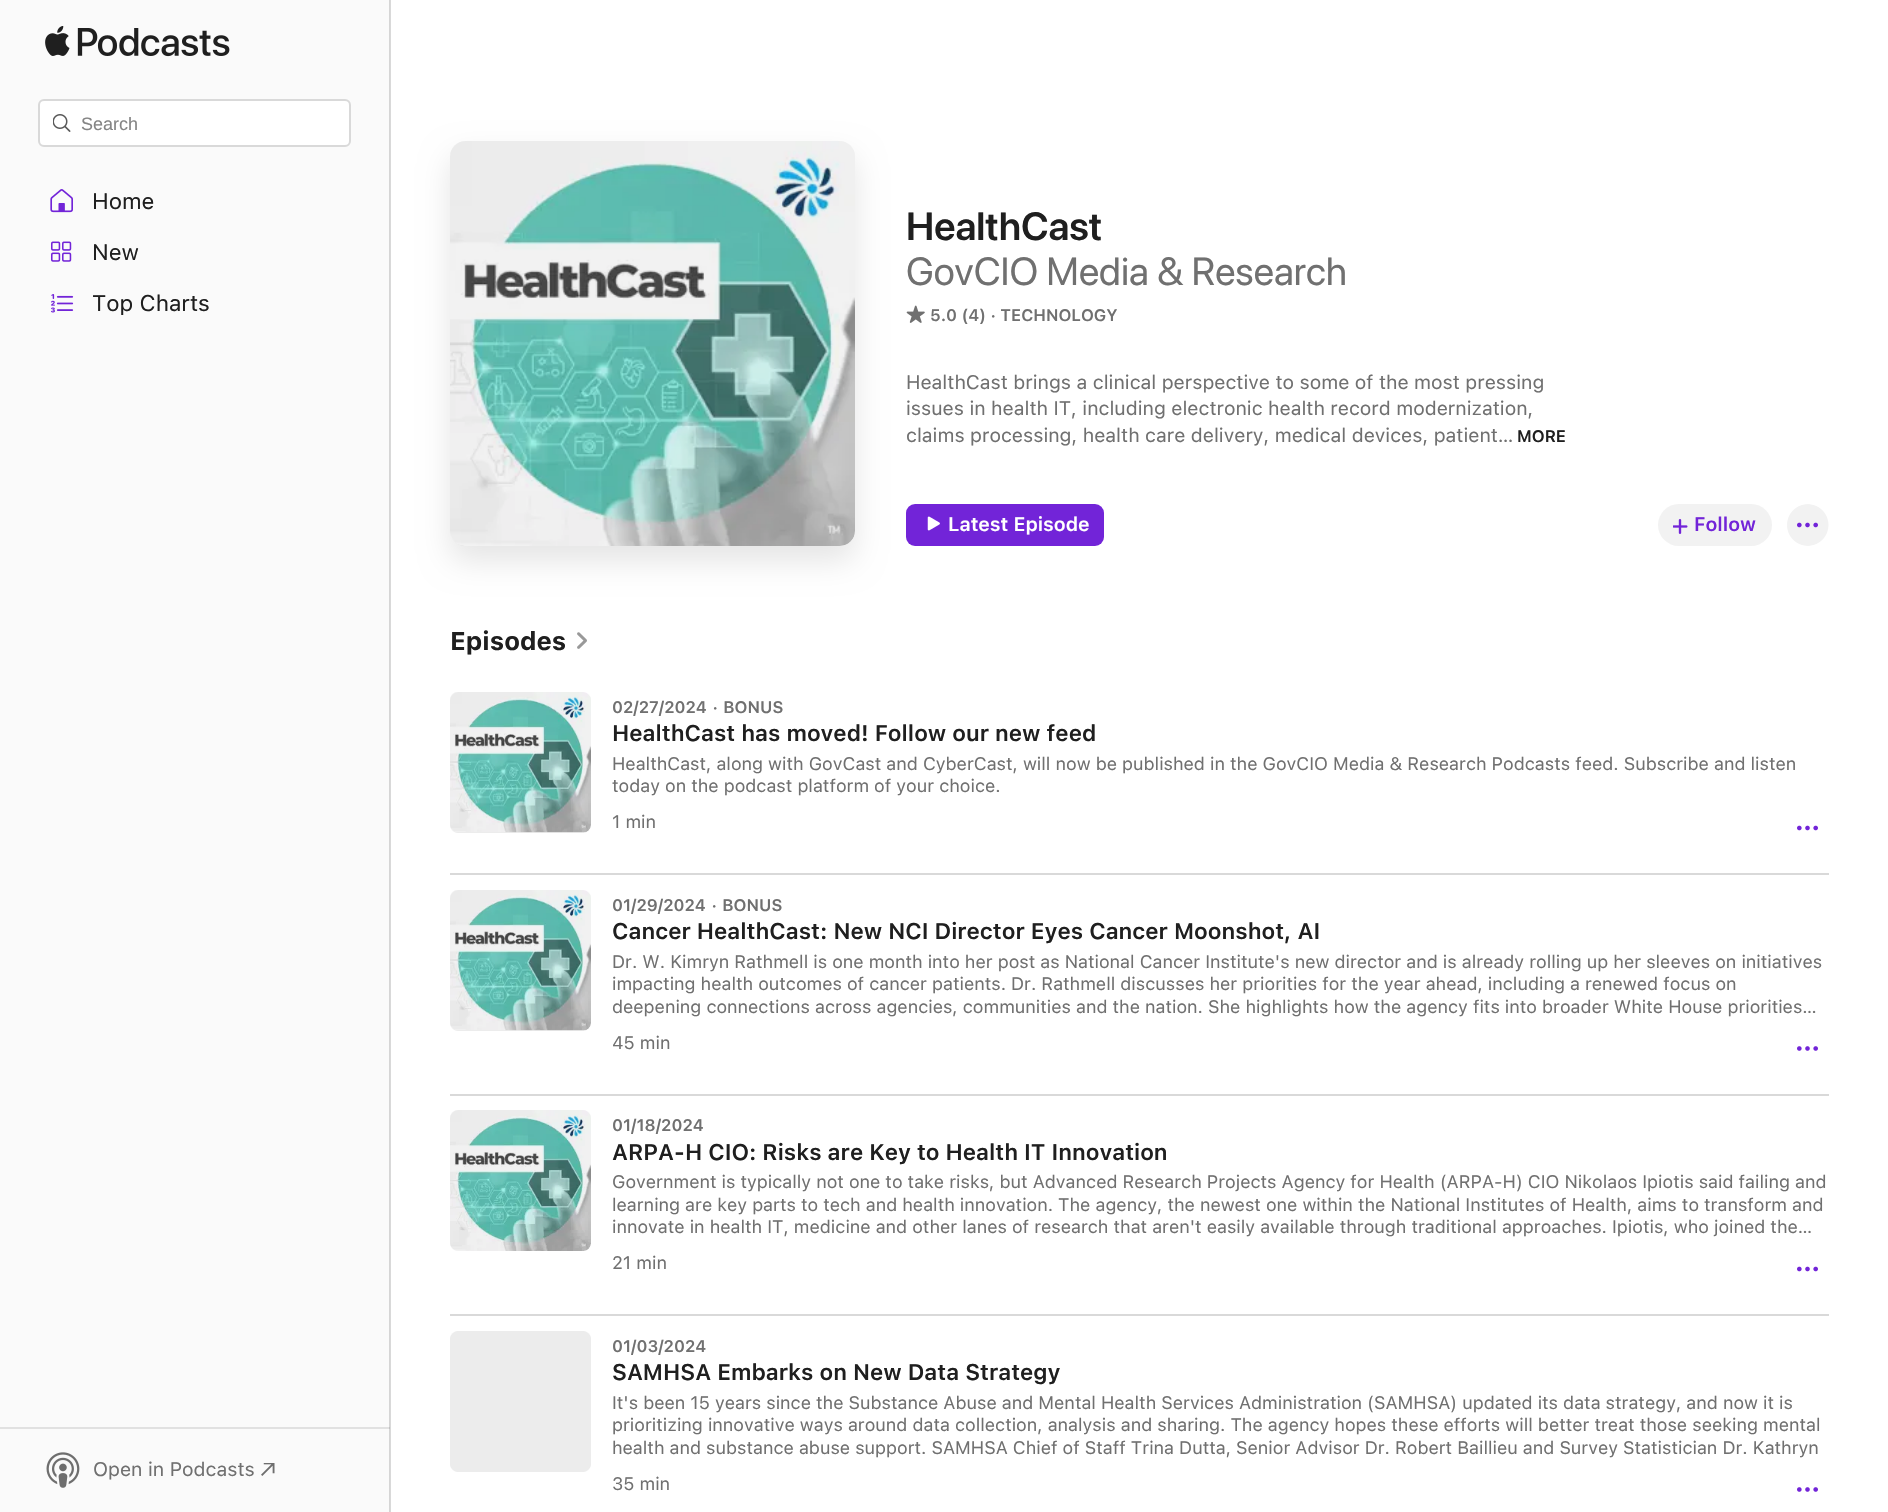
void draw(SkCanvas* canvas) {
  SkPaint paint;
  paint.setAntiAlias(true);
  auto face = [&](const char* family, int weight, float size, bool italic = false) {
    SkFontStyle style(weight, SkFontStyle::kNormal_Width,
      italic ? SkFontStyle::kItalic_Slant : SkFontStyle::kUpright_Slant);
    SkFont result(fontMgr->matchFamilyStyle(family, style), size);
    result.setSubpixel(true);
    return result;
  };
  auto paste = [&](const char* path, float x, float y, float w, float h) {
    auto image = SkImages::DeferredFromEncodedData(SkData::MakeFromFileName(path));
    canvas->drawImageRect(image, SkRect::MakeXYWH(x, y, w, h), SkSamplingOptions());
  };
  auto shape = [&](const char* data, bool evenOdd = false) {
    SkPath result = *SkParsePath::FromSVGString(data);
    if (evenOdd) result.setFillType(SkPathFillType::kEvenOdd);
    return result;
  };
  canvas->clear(0xffffffff);
  {
    const struct { float x, y, w, h; SkColor color; } items[] = {
      {390, 0, 1, 1512, 0xffd9d9d9},
      {0, 0, 389, 1512, 0xfffafafa},
      {0, 1427, 390, 2, 0xffe1e1e1},
      {389, 0, 1, 1512, 0xffd5d5d5},
      {389, 1427, 1, 2, 0xffc0c0c0},
    };
    for (auto [x, y, w, h, color] : items) {
      paint.setColor(color);
      canvas->drawRect(SkRect::MakeXYWH(x, y, w, h), paint);
    }
  }
  paste("img/1.png", 45, 26, 185, 31);
  paint.setColor(0xffffffff);
  canvas->drawRoundRect(SkRect::MakeXYWH(39, 100, 311, 46), 5, 5, paint);
  paint.setStroke(true);
  paint.setStrokeWidth(2);
  paint.setColor(0xffd9d9d9);
  canvas->drawRoundRect(SkRect::MakeXYWH(39, 100, 311, 46), 5, 5, paint);
  paste("img/2.png", 53, 114, 18, 18);
  paste("img/3.png", 50, 189, 23, 24);
  paste("img/4.png", 51, 241, 21, 21);
  paste("img/5.png", 51, 294, 23, 19);
  paste("img/6.png", 46, 1452, 34, 36);
  paste("img/7.png", 261, 1463, 14, 13);
  paint.setStroke(false);
  paint.setColor(0x1a000000);
  paint.setMaskFilter(SkMaskFilter::MakeBlur(kNormal_SkBlurStyle, 15));
  canvas->drawRoundRect(SkRect::MakeXYWH(450, 156, 405, 405), 15, 15, paint);
  paint.setMaskFilter(nullptr);
  paste("img/8.png", 450, 141, 405, 405);
  paint.setColor(0x1a808080);
  canvas->drawPath(shape("M465 141H840C848 141 855 148 855 156V531C855 539 848 546 840 546H465C457 546 450 539 450 531V156C450 148 457 141 465 141Z"), paint);
  paste("img/9.png", 906, 305, 19, 18);
  paint.setColor(0xff7224d8);
  canvas->drawRoundRect(SkRect::MakeXYWH(906, 504, 198, 42), 9, 9, paint);
  paste("img/10.png", 927, 516, 13, 15);
  paint.setColor(0xfff2f2f2);
  canvas->drawRoundRect(SkRect::MakeXYWH(1658, 504, 114, 42), 21, 21, paint);
  paste("img/11.png", 1673, 519, 15, 15);
  paste("img/12.png", 1787, 504, 42, 42);
  paste("img/13.png", 577, 632, 10, 17);
  paint.setColor(0xffd9d9d9);
  canvas->drawRect(SkRect::MakeXYWH(450, 873, 1379, 2), paint);
  paint.setColor(0xfff8f8f8);
  canvas->drawRoundRect(SkRect::MakeXYWH(450, 692, 141, 141), 8, 8, paint);
  paste("img/14.png", 450, 692, 141, 141);
  paint.setColor(0x1a808080);
  canvas->drawPath(shape("M458 692H583C587 692 591 696 591 700V825C591 829 587 833 583 833H458C454 833 450 829 450 825V700C450 696 454 692 458 692Z"), paint);
  paste("img/15.png", 1797, 825, 21, 6);
  paint.setColor(0xffd9d9d9);
  canvas->drawRect(SkRect::MakeXYWH(450, 1094, 1379, 2), paint);
  paint.setColor(0xfff8f8f8);
  canvas->drawRoundRect(SkRect::MakeXYWH(450, 890, 141, 141), 8, 8, paint);
  paste("img/14.png", 450, 890, 141, 141);
  paint.setColor(0x1a808080);
  canvas->drawPath(shape("M458 890H583C587 890 591 894 591 898V1023C591 1027 587 1031 583 1031H458C454 1031 450 1027 450 1023V898C450 894 454 890 458 890Z"), paint);
  paste("img/16.png", 1797, 1046, 21, 5);
  paint.setColor(0xffd9d9d9);
  canvas->drawRect(SkRect::MakeXYWH(450, 1314, 1379, 2), paint);
  paint.setColor(0xfff8f8f8);
  canvas->drawRoundRect(SkRect::MakeXYWH(450, 1110, 141, 141), 8, 8, paint);
  paste("img/17.png", 450, 1110, 141, 141);
  paint.setColor(0x1a808080);
  canvas->drawPath(shape("M458 1110H583C587 1110 591 1114 591 1118V1243C591 1247 587 1251 583 1251H458C454 1251 450 1247 450 1243V1118C450 1114 454 1110 458 1110Z"), paint);
  paste("img/15.png", 1797, 1266, 21, 6);
  paint.setColor(0xfff8f8f8);
  canvas->drawRoundRect(SkRect::MakeXYWH(450, 1331, 141, 141), 8, 8, paint);
  paint.setColor(0xffececec);
  canvas->drawPath(shape("M458 1331H583C587 1331 591 1335 591 1339V1464C591 1468 587 1472 583 1472H458C454 1472 450 1468 450 1464V1339C450 1335 454 1331 458 1331Z"), paint);
  paste("img/16.png", 1797, 1487, 21, 5);
  auto f0 = face("Liberation Sans", 400, 18);
  paint.setColor(0xff858585);
  canvas->drawString("Search", 81, 130, f0, paint);
  auto f1 = face("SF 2", 400, 22.5f);
  paint.setColor(0xff1f1f1f);
  {
    const struct { const char* s; float x, y; } items[] = {
      {"Home", 92, 209},
      {"New", 92, 260},
      {"Top Charts", 92, 311},
    };
    for (auto [s, x, y] : items) {
      canvas->drawString(s, x, y, f1, paint);
    }
  }
  auto f2 = face("SF 2", 400, 19.5f);
  paint.setColor(0xff707070);
  canvas->drawString("Open in Podcasts", 93, 1476, f2, paint);
  auto f3 = face("SF 2", 600, 39);
  paint.setColor(0xff1f1f1f);
  canvas->drawString("HealthCast", 906, 240, f3, paint);
  auto f4 = face("SF", 400, 39);
  paint.setColor(0xff707070);
  canvas->drawString("GovCIO Media & Research", 906, 285, f4, paint);
  auto f5 = face("SF", 600, 16.5f);
  canvas->drawString("5.0 (4) · TECHNOLOGY", 930, 321, f5, paint);
  {
    const struct { const char* s; float x, y; } items[] = {
      {"HealthCast brings a clinical perspective to some of the most pressing", 906, 389},
      {"issues in health IT, including electronic health record modernization,", 906, 415},
      {"claims processing, health care delivery, medical devices, patient…", 906, 442},
    };
    for (auto [s, x, y] : items) {
      canvas->drawString(s, x, y, f2, paint);
    }
  }
  paint.setColor(0xff1f1f1f);
  canvas->drawString("MORE", 1517, 442, f5, paint);
  auto f6 = face("SF", 600, 19.5f);
  paint.setColor(0xffffffff);
  canvas->drawString("Latest Episode", 948, 531, f6, paint);
  paint.setColor(0xff7224d8);
  canvas->drawString("Follow", 1694, 531, f6, paint);
  auto f7 = face("SF", 700, 25.5f);
  paint.setColor(0xff1f1f1f);
  canvas->drawString("Episodes", 450, 650, f7, paint);
  paint.setColor(0xff707070);
  canvas->drawString("02/27/2024 · BONUS", 612, 713, f5, paint);
  auto f8 = face("SF", 600, 22.5f);
  paint.setColor(0xff1f1f1f);
  canvas->drawString("HealthCast has moved! Follow our new feed", 612, 741, f8, paint);
  auto f9 = face("SF 2", 400, 18);
  paint.setColor(0xff707070);
  {
    const struct { const char* s; float x, y; } items[] = {
      {"HealthCast, along with GovCast and CyberCast, will now be published in the GovCIO Media & Research Podcasts feed. Subscribe and listen", 612, 770},
      {"today on the podcast platform of your choice.", 612, 792},
      {"1 min", 612, 828},
    };
    for (auto [s, x, y] : items) {
      canvas->drawString(s, x, y, f9, paint);
    }
  }
  canvas->drawString("01/29/2024 · BONUS", 612, 911, f5, paint);
  paint.setColor(0xff1f1f1f);
  canvas->drawString("Cancer HealthCast: New NCI Director Eyes Cancer Moonshot, AI", 612, 939, f8, paint);
  paint.setColor(0xff707070);
  {
    const struct { const char* s; float x, y; } items[] = {
      {"Dr. W. Kimryn Rathmell is one month into her post as National Cancer Institute's new director and is already rolling up her sleeves on initiatives", 612, 968},
      {"impacting health outcomes of cancer patients. Dr. Rathmell discusses her priorities for the year ahead, including a renewed focus on", 612, 990},
      {"deepening connections across agencies, communities and the nation. She highlights how the agency fits into broader White House priorities…", 612, 1013},
      {"45 min", 612, 1049},
    };
    for (auto [s, x, y] : items) {
      canvas->drawString(s, x, y, f9, paint);
    }
  }
  canvas->drawString("01/18/2024", 612, 1131, f5, paint);
  paint.setColor(0xff1f1f1f);
  canvas->drawString("ARPA-H CIO: Risks are Key to Health IT Innovation", 612, 1160, f8, paint);
  paint.setColor(0xff707070);
  {
    const struct { const char* s; float x, y; } items[] = {
      {"Government is typically not one to take risks, but Advanced Research Projects Agency for Health (ARPA-H) CIO Nikolaos Ipiotis said failing and", 612, 1188},
      {"learning are key parts to tech and health innovation. The agency, the newest one within the National Institutes of Health, aims to transform and", 612, 1211},
      {"innovate in health IT, medicine and other lanes of research that aren't easily available through traditional approaches. Ipiotis, who joined the…", 612, 1233},
      {"21 min", 612, 1269},
    };
    for (auto [s, x, y] : items) {
      canvas->drawString(s, x, y, f9, paint);
    }
  }
  canvas->drawString("01/03/2024", 612, 1352, f5, paint);
  paint.setColor(0xff1f1f1f);
  canvas->drawString("SAMHSA Embarks on New Data Strategy", 612, 1380, f8, paint);
  paint.setColor(0xff707070);
  {
    const struct { const char* s; float x, y; } items[] = {
      {"It's been 15 years since the Substance Abuse and Mental Health Services Administration (SAMHSA) updated its data strategy, and now it is", 612, 1409},
      {"prioritizing innovative ways around data collection, analysis and sharing. The agency hopes these efforts will better treat those seeking mental", 612, 1431},
      {"health and substance abuse support. SAMHSA Chief of Staff Trina Dutta, Senior Advisor Dr. Robert Baillieu and Survey Statistician Dr. Kathryn", 612, 1454},
      {"35 min", 612, 1490},
    };
    for (auto [s, x, y] : items) {
      canvas->drawString(s, x, y, f9, paint);
    }
  }
}
